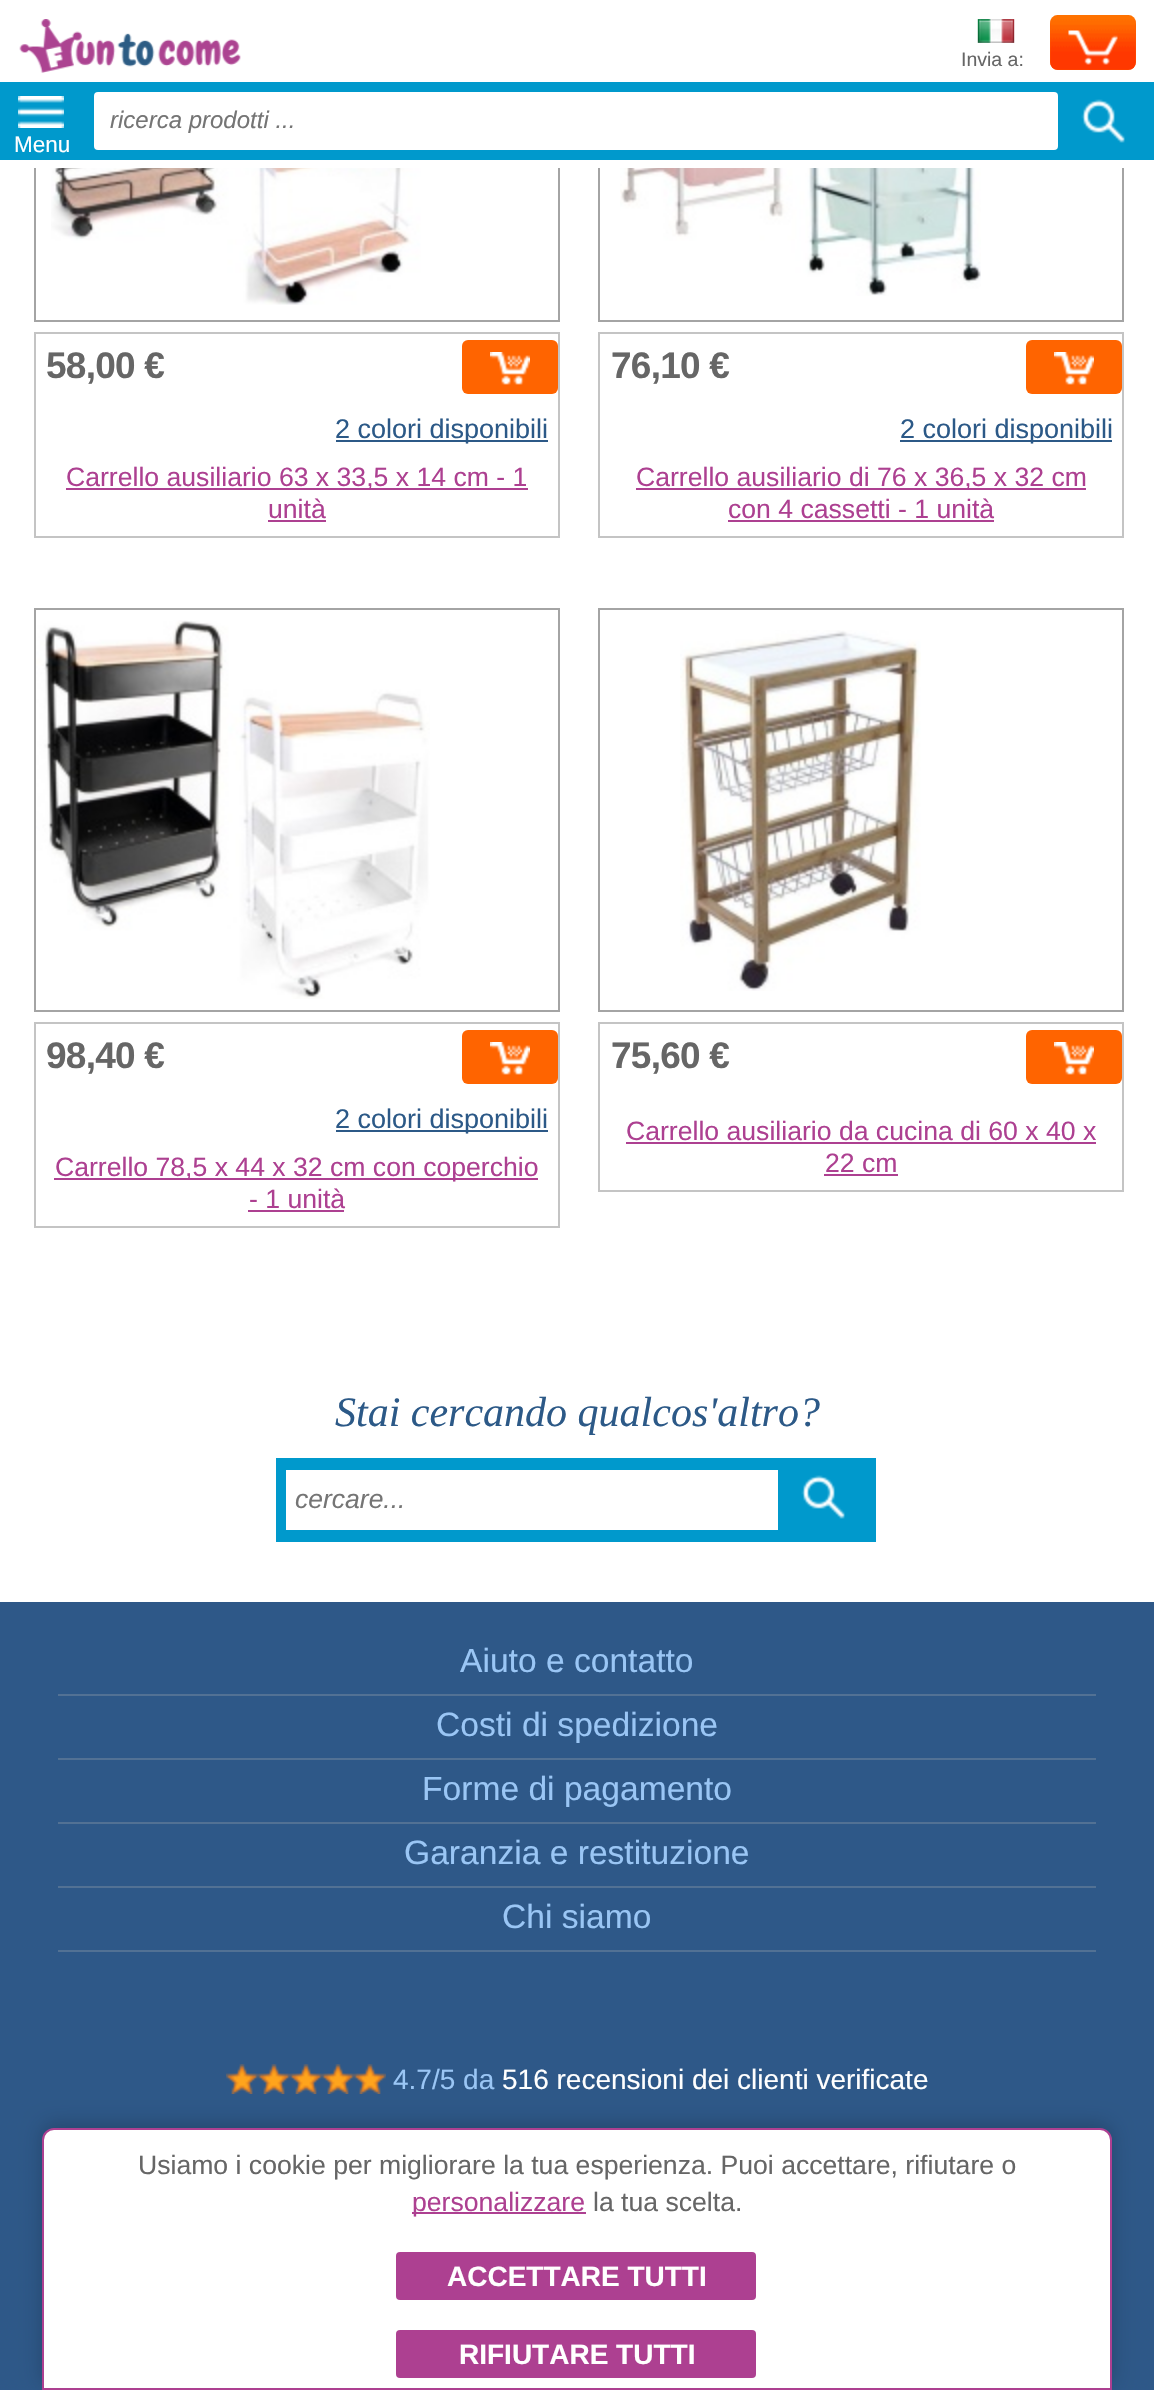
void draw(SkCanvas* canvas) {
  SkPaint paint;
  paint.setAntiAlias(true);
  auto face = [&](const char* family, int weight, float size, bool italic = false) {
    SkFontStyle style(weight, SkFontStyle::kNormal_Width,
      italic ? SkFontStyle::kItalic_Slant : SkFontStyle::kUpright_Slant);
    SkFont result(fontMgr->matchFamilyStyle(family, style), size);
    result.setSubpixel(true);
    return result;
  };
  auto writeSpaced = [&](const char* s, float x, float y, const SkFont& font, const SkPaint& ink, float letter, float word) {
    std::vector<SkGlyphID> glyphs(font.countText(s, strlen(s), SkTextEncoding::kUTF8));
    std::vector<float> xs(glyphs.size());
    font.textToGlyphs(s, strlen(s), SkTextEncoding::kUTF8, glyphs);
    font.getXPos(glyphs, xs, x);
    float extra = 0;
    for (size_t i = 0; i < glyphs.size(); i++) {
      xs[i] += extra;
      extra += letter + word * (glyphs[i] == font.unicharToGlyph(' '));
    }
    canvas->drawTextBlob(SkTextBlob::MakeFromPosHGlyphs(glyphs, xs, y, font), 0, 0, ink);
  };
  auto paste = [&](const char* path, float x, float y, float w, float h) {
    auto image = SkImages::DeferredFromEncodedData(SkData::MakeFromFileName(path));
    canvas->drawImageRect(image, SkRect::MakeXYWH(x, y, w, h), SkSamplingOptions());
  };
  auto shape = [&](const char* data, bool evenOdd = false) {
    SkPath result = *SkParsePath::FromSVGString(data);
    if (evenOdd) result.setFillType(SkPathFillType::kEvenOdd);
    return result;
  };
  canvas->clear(0xffffffff);
  paint.setStroke(true);
  paint.setStrokeWidth(2);
  paint.setColor(0xffa4a4a4);
  canvas->drawRect(SkRect::MakeXYWH(35, -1, 524, 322), paint);
  canvas->drawRect(SkRect::MakeXYWH(599, -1, 524, 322), paint);
  paint.setStroke(false);
  paint.setColor(0xffffffff);
  canvas->drawRect(SkRect::MakeXYWH(34, 160, 1090, 8), paint);
  canvas->drawRect(SkRect::MakeXYWH(34, 0, 1090, 82), paint);
  paste("img/1.png", 19, 19, 222, 54);
  paste("img/2.png", 977, 19, 38, 24);
  paint.setColor(0xffff5d00);
  canvas->drawRoundRect(SkRect::MakeXYWH(1050, 16, 86, 54), 8, 8, paint);
  paste("img/3.png", 1050, 15, 86, 55);
  paste("img/4.png", 1068, 30, 50, 35);
  paint.setColor(0xff0099cc);
  canvas->drawRect(SkRect::MakeXYWH(0, 82, 1154, 78), paint);
  paint.setColor(0xffffffff);
  canvas->drawRoundRect(SkRect::MakeXYWH(94, 92, 964, 58), 4, 4, paint);
  paste("img/5.png", 1081, 99, 44, 44);
  paste("img/6.png", 18, 96, 46, 32);
  paste("img/7.png", 51, 168, 370, 137);
  paint.setStroke(true);
  paint.setColor(0xffc4c4c4);
  canvas->drawRect(SkRect::MakeXYWH(35, 333, 524, 204), paint);
  paint.setStroke(false);
  paint.setColor(0xffff6400);
  canvas->drawRoundRect(SkRect::MakeXYWH(462, 340, 96, 54), 6, 6, paint);
  paste("img/8.png", 490, 352, 40, 33);
  {
    const struct { float x, y, w, h; SkColor color; } items[] = {
      {336, 440, 212, 2, 0xff2c5987},
      {66, 488, 462, 2, 0xffad4091},
      {268, 520, 58, 2, 0xffad4091},
    };
    for (auto [x, y, w, h, color] : items) {
      paint.setColor(color);
      canvas->drawRect(SkRect::MakeXYWH(x, y, w, h), paint);
    }
  }
  paste("img/9.png", 620, 168, 361, 128);
  paint.setStroke(true);
  paint.setColor(0xffc4c4c4);
  canvas->drawRect(SkRect::MakeXYWH(599, 333, 524, 204), paint);
  paint.setStroke(false);
  paint.setColor(0xffff6400);
  canvas->drawRoundRect(SkRect::MakeXYWH(1026, 340, 96, 54), 6, 6, paint);
  paste("img/8.png", 1054, 352, 40, 33);
  {
    const struct { float x, y, w, h; SkColor color; } items[] = {
      {900, 440, 212, 2, 0xff2c5987},
      {636, 488, 450, 2, 0xffad4091},
      {728, 520, 266, 2, 0xffad4091},
    };
    for (auto [x, y, w, h, color] : items) {
      paint.setColor(color);
      canvas->drawRect(SkRect::MakeXYWH(x, y, w, h), paint);
    }
  }
  paint.setStroke(true);
  paint.setColor(0xffa4a4a4);
  canvas->drawRect(SkRect::MakeXYWH(35, 609, 524, 402), paint);
  paste("img/10.png", 36, 620, 394, 379);
  paint.setColor(0xffc4c4c4);
  canvas->drawRect(SkRect::MakeXYWH(35, 1023, 524, 204), paint);
  paint.setStroke(false);
  paint.setColor(0xffff6400);
  canvas->drawRoundRect(SkRect::MakeXYWH(462, 1030, 96, 54), 6, 6, paint);
  paste("img/8.png", 490, 1042, 40, 33);
  {
    const struct { float x, y, w, h; SkColor color; } items[] = {
      {336, 1130, 212, 2, 0xff2c5987},
      {54, 1178, 484, 2, 0xffad4091},
      {248, 1210, 96, 2, 0xffad4091},
    };
    for (auto [x, y, w, h, color] : items) {
      paint.setColor(color);
      canvas->drawRect(SkRect::MakeXYWH(x, y, w, h), paint);
    }
  }
  paint.setStroke(true);
  paint.setColor(0xffa4a4a4);
  canvas->drawRect(SkRect::MakeXYWH(599, 609, 524, 402), paint);
  paste("img/11.png", 680, 630, 241, 361);
  paint.setColor(0xffc4c4c4);
  canvas->drawRect(SkRect::MakeXYWH(599, 1023, 524, 168), paint);
  paint.setStroke(false);
  paint.setColor(0xffff6400);
  canvas->drawRoundRect(SkRect::MakeXYWH(1026, 1030, 96, 54), 6, 6, paint);
  paste("img/8.png", 1054, 1042, 40, 33);
  {
    const struct { float x, y, w, h; SkColor color; } items[] = {
      {626, 1142, 470, 2, 0xffad4091},
      {824, 1174, 74, 2, 0xffad4091},
      {276, 1458, 600, 84, 0xff0099cc},
      {286, 1470, 492, 60, 0xffffffff},
    };
    for (auto [x, y, w, h, color] : items) {
      paint.setColor(color);
      canvas->drawRect(SkRect::MakeXYWH(x, y, w, h), paint);
    }
  }
  paste("img/5.png", 801, 1475, 44, 44);
  {
    const struct { float x, y, w, h; SkColor color; } items[] = {
      {0, 1602, 1154, 788, 0xff2e5888},
      {58, 1694, 1038, 2, 0xff527194},
      {58, 1758, 1038, 2, 0xff527194},
      {58, 1822, 1038, 2, 0xff527194},
      {58, 1886, 1038, 2, 0xff527194},
      {58, 1950, 1038, 2, 0xff527194},
    };
    for (auto [x, y, w, h, color] : items) {
      paint.setColor(color);
      canvas->drawRect(SkRect::MakeXYWH(x, y, w, h), paint);
    }
  }
  paste("img/12.png", 226, 2064, 160, 30);
  paint.setColor(0x33000000);
  paint.setMaskFilter(SkMaskFilter::MakeBlur(kNormal_SkBlurStyle, 10));
  canvas->drawRoundRect(SkRect::MakeXYWH(42, 2124, 1070, 262), 12, 12, paint);
  paint.setMaskFilter(nullptr);
  paint.setColor(0xffffffff);
  canvas->drawPath(shape("M54 2129H1100C1106 2129 1111 2134 1111 2140V2389H43V2140C43 2134 48 2129 54 2129Z"), paint);
  paint.setStroke(true);
  paint.setColor(0xffad4091);
  canvas->drawPath(shape("M54 2129H1100C1106 2129 1111 2134 1111 2140V2389H43V2140C43 2134 48 2129 54 2129Z"), paint);
  paint.setStroke(false);
  canvas->drawRect(SkRect::MakeXYWH(412, 2212, 174, 2), paint);
  canvas->drawRoundRect(SkRect::MakeXYWH(396, 2252, 360, 48), 4, 4, paint);
  canvas->drawRoundRect(SkRect::MakeXYWH(396, 2330, 360, 48), 4, 4, paint);
  auto f0 = face("Liberation Sans", 400, 19.5f);
  paint.setColor(0xff666666);
  canvas->drawString("Invia a:", 961, 66, f0, paint);
  auto f1 = face("Liberation Sans", 400, 24, true);
  paint.setColor(0xff757575);
  canvas->drawString("ricerca prodotti ...", 110, 128, f1, paint);
  auto f2 = face("Liberation Sans", 400, 22.5f);
  paint.setColor(0xffffffff);
  canvas->drawString("Menu", 14, 152, f2, paint);
  auto f3 = face("Liberation Sans", 700, 37);
  paint.setColor(0xff666666);
  writeSpaced("58,00 €", 46, 378, f3, paint, -0.75f, 0);
  auto f4 = face("Liberation Sans", 400, 27);
  paint.setColor(0xff2c5987);
  canvas->drawString("2 colori disponibili", 335, 438, f4, paint);
  auto f5 = face("Liberation Sans", 400, 26.6f);
  paint.setColor(0xffad4091);
  canvas->drawString("Carrello ausiliario 63 x 33,5 x 14 cm - 1", 66, 486, f5, paint);
  canvas->drawString("unità", 268, 518, f5, paint);
  paint.setColor(0xff666666);
  writeSpaced("76,10 €", 611, 378, f3, paint, -0.75f, 0);
  paint.setColor(0xff2c5987);
  canvas->drawString("2 colori disponibili", 900, 438, f4, paint);
  paint.setColor(0xffad4091);
  canvas->drawString("Carrello ausiliario di 76 x 36,5 x 32 cm", 636, 486, f5, paint);
  canvas->drawString("con 4 cassetti - 1 unità", 728, 518, f5, paint);
  paint.setColor(0xff666666);
  writeSpaced("98,40 €", 46, 1068, f3, paint, -0.75f, 0);
  paint.setColor(0xff2c5987);
  canvas->drawString("2 colori disponibili", 335, 1128, f4, paint);
  paint.setColor(0xffad4091);
  canvas->drawString("Carrello 78,5 x 44 x 32 cm con coperchio", 55, 1176, f5, paint);
  canvas->drawString("- 1 unità", 249, 1208, f5, paint);
  paint.setColor(0xff666666);
  writeSpaced("75,60 €", 611, 1068, f3, paint, -0.75f, 0);
  paint.setColor(0xffad4091);
  canvas->drawString("Carrello ausiliario da cucina di 60 x 40 x", 626, 1140, f5, paint);
  canvas->drawString("22 cm", 825, 1172, f5, paint);
  auto f6 = face("Liberation Serif", 400, 42, true);
  paint.setColor(0xff2c5987);
  canvas->drawString("Stai cercando qualcos'altro?", 335, 1426, f6, paint);
  auto f7 = face("Liberation Sans", 400, 26.5f, true);
  paint.setColor(0xff757575);
  canvas->drawString("cercare...", 295, 1508, f7, paint);
  auto f8 = face("Liberation Sans", 400, 33.6f);
  paint.setColor(0xff9ac6f5);
  {
    const struct { const char* s; float x, y; } items[] = {
      {"Aiuto e contatto", 460, 1672},
      {"Costi di spedizione", 436, 1736},
      {"Forme di pagamento", 422, 1800},
      {"Garanzia e restituzione", 404, 1864},
      {"Chi siamo", 502, 1928},
    };
    for (auto [s, x, y] : items) {
      canvas->drawString(s, x, y, f8, paint);
    }
  }
  auto f9 = face("Liberation Sans", 400, 28);
  canvas->drawString("4.7/5 da", 393, 2089, f9, paint);
  paint.setColor(0xffffffff);
  canvas->drawString("516 recensioni dei clienti verificate", 502, 2089, f9, paint);
  paint.setColor(0xff666666);
  canvas->drawString("Usiamo i cookie per migliorare la tua esperienza. Puoi accettare, rifiutare o", 138, 2174, f5, paint);
  paint.setColor(0xffad4091);
  canvas->drawString("personalizzare", 412, 2211, f5, paint);
  paint.setColor(0xff666666);
  canvas->drawString("la tua scelta.", 593, 2211, f5, paint);
  auto f10 = face("Liberation Sans", 700, 28);
  paint.setColor(0xffffffff);
  canvas->drawString("ACCETTARE TUTTI", 447, 2286, f10, paint);
  canvas->drawString("RIFIUTARE TUTTI", 459, 2364, f10, paint);
}
